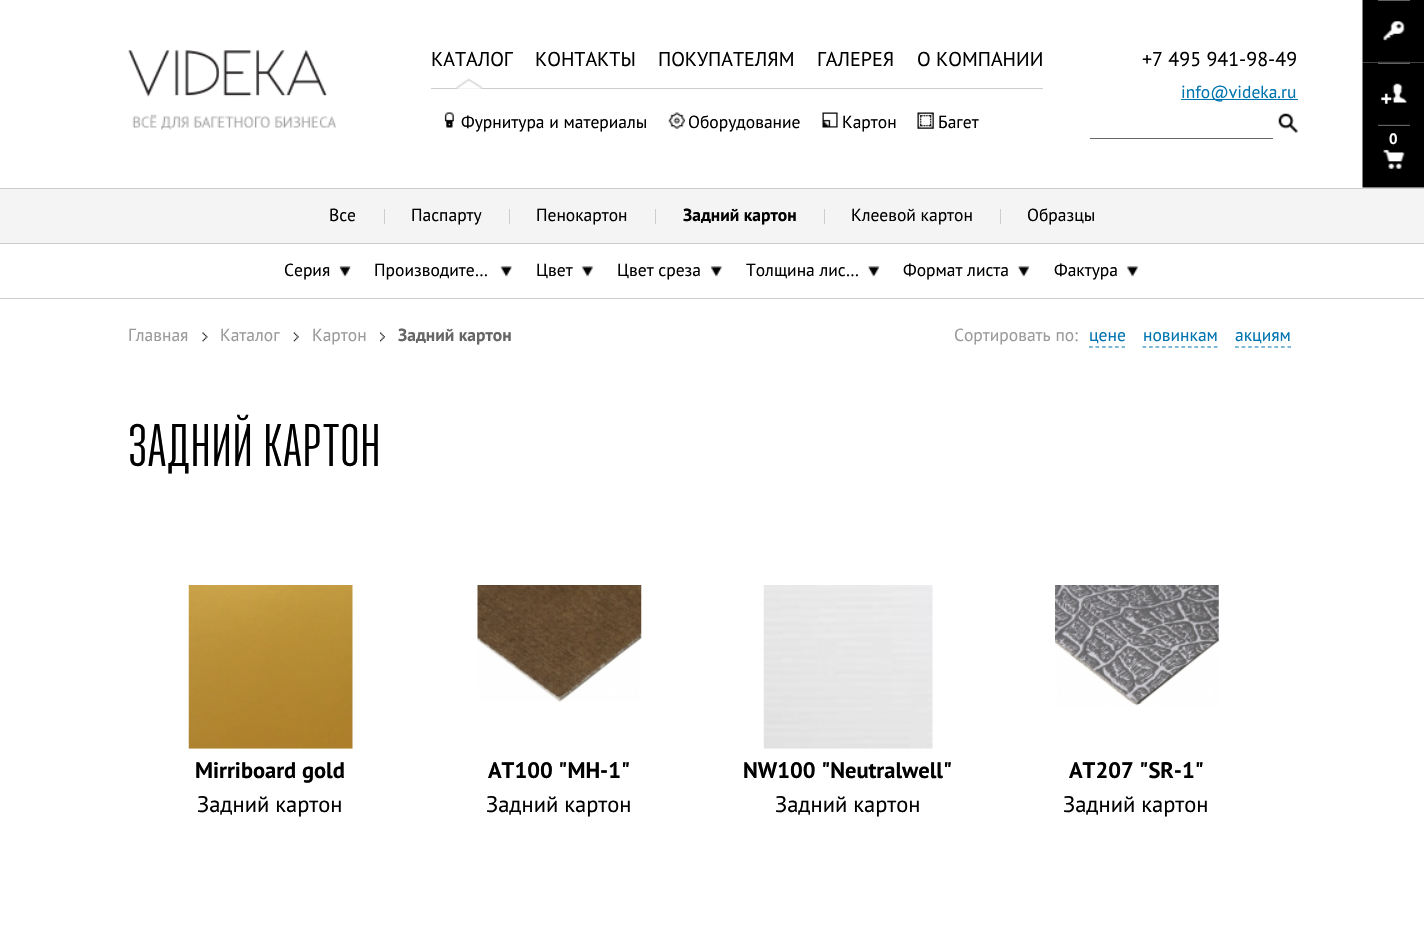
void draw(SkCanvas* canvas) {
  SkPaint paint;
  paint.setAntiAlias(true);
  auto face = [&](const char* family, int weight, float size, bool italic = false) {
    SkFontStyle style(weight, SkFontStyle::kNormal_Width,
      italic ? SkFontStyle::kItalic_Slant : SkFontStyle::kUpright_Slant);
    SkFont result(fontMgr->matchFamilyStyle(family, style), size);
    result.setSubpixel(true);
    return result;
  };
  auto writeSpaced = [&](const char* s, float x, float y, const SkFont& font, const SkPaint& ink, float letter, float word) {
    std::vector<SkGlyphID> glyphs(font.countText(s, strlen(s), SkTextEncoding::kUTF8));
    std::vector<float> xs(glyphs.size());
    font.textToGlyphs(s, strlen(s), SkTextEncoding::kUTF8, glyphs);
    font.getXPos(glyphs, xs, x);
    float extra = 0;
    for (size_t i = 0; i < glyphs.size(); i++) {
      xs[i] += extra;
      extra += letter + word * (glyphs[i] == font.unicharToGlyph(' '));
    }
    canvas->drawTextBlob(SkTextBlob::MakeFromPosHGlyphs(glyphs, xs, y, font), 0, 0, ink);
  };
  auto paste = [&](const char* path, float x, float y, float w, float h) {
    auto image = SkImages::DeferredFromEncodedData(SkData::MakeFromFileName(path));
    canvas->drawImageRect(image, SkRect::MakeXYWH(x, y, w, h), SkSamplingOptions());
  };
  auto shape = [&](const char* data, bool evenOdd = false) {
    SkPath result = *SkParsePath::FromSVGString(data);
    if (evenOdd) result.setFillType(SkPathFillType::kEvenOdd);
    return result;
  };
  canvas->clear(0xffffffff);
  paint.setColor(0xffcdcdcd);
  canvas->drawRect(SkRect::MakeXYWH(0, 188, 1424, 1), paint);
  paste("img/1.png", 128, 50, 199, 47);
  paste("img/2.png", 132, 114, 204, 16);
  paste("img/3.png", 444, 112, 10, 16);
  paste("img/4.png", 668, 112, 17, 17);
  paste("img/5.png", 822, 112, 16, 16);
  paste("img/6.png", 917, 112, 17, 17);
  canvas->drawRect(SkRect::MakeXYWH(431, 88, 612, 1), paint);
  paste("img/7.png", 456, 78, 27, 11);
  paint.setColor(0xff0074af);
  canvas->drawRect(SkRect::MakeXYWH(1181, 99, 117, 1), paint);
  paste("img/8.png", 1278, 113, 20, 20);
  {
    const struct { float x, y, w, h; SkColor color; } items[] = {
      {1090, 138, 183, 1, 0xff666666},
      {0, 189, 1424, 54, 0xfff4f4f4},
      {384, 209, 1, 15, 0xffcdcdcd},
      {509, 209, 1, 15, 0xffcdcdcd},
      {655, 209, 1, 15, 0xffcdcdcd},
      {824, 209, 1, 15, 0xffcdcdcd},
      {1000, 209, 1, 15, 0xffcdcdcd},
      {0, 243, 1424, 1, 0xffcdcdcd},
      {0, 298, 1424, 1, 0xffcdcdcd},
    };
    for (auto [x, y, w, h, color] : items) {
      paint.setColor(color);
      canvas->drawRect(SkRect::MakeXYWH(x, y, w, h), paint);
    }
  }
  paste("img/9.png", 339, 266, 12, 11);
  paste("img/10.png", 500, 266, 13, 11);
  paste("img/11.png", 581, 266, 13, 11);
  paste("img/10.png", 710, 266, 13, 11);
  paste("img/12.png", 867, 266, 13, 11);
  paste("img/12.png", 1017, 266, 13, 11);
  paste("img/11.png", 1126, 266, 13, 11);
  paste("img/13.png", 202, 332, 6, 10);
  paste("img/14.png", 293, 332, 6, 10);
  paste("img/15.png", 380, 332, 5, 10);
  paint.setStroke(true);
  paint.setStrokeWidth(1.2f);
  paint.setColor(0xff0074af);
  paint.setPathEffect(SkDashPathEffect::Make({{3.75f, 2.75f}}, 0));
  canvas->drawPath(shape("M1089 347H1125"), paint);
  paint.setPathEffect(nullptr);
  paint.setPathEffect(SkDashPathEffect::Make({{3.75f, 2.73f}}, 0));
  canvas->drawPath(shape("M1142.5 347H1217.5"), paint);
  paint.setPathEffect(nullptr);
  paint.setPathEffect(SkDashPathEffect::Make({{3.75f, 2.81f}}, 0));
  canvas->drawPath(shape("M1235 347H1291"), paint);
  paint.setPathEffect(nullptr);
  paste("img/16.png", 188, 585, 165, 164);
  paste("img/17.png", 477, 585, 165, 117);
  paste("img/18.png", 763, 585, 170, 164);
  paste("img/19.png", 1055, 585, 164, 121);
  paste("img/20.png", 1362, 0, 62, 63);
  paint.setStroke(false);
  paint.setColor(0xff616161);
  canvas->drawRect(SkRect::MakeXYWH(1378, 0, 32, 1), paint);
  paint.setColor(0xff131313);
  canvas->drawRect(SkRect::MakeXYWH(1378, 61, 32, 1), paint);
  paste("img/21.png", 1362, 62, 62, 63);
  paint.setColor(0xff616161);
  canvas->drawRect(SkRect::MakeXYWH(1378, 63, 32, 1), paint);
  paint.setColor(0xff131313);
  canvas->drawRect(SkRect::MakeXYWH(1378, 124, 32, 1), paint);
  paste("img/22.png", 1362, 125, 62, 63);
  paint.setColor(0xff616161);
  canvas->drawRect(SkRect::MakeXYWH(1378, 125, 32, 1), paint);
  auto f0 = face("PT Sans", 400, 20);
  paint.setColor(0xff000000);
  canvas->drawString("КАТАЛОГ", 431, 66, f0, paint);
  auto f1 = face("PT Sans", 400, 17.5f);
  {
    const struct { const char* s; float x, y; } items[] = {
      {"Фурнитура и материалы", 461, 128},
      {"Оборудование", 688, 128},
      {"Картон", 842, 128},
      {"Багет", 938, 128},
    };
    for (auto [s, x, y] : items) {
      canvas->drawString(s, x, y, f1, paint);
    }
  }
  {
    const struct { const char* s; float x, y; } items[] = {
      {"КОНТАКТЫ", 535, 66},
      {"ПОКУПАТЕЛЯМ", 658, 66},
      {"ГАЛЕРЕЯ", 817, 66},
      {"О КОМПАНИИ", 917, 66},
      {"+7 495 941-98-49", 1142, 66},
    };
    for (auto [s, x, y] : items) {
      canvas->drawString(s, x, y, f0, paint);
    }
  }
  paint.setColor(0xff0074af);
  canvas->drawString("info@videka.ru", 1181, 98, f1, paint);
  paint.setColor(0xff000000);
  {
    const struct { const char* s; float x, y; } items[] = {
      {"Все", 329, 221},
      {"Паспарту", 411, 221},
      {"Пенокартон", 536, 221},
    };
    for (auto [s, x, y] : items) {
      canvas->drawString(s, x, y, f1, paint);
    }
  }
  auto f2 = face("PT Sans", 700, 17.5f);
  canvas->drawString("Задний картон", 683, 221, f2, paint);
  {
    const struct { const char* s; float x, y; } items[] = {
      {"Клеевой картон", 851, 221},
      {"Образцы", 1027, 221},
      {"Серия", 284, 276},
      {"Производите…", 374, 276},
      {"Цвет", 536, 276},
      {"Цвет среза", 617, 276},
      {"Толщина лис…", 746, 276},
      {"Формат листа", 903, 276},
      {"Фактура", 1054, 276},
    };
    for (auto [s, x, y] : items) {
      canvas->drawString(s, x, y, f1, paint);
    }
  }
  paint.setColor(0xff9a9a9a);
  {
    const struct { const char* s; float x, y; } items[] = {
      {"Главная", 128, 341},
      {"Каталог", 220, 341},
      {"Картон", 312, 341},
    };
    for (auto [s, x, y] : items) {
      canvas->drawString(s, x, y, f1, paint);
    }
  }
  paint.setColor(0xff666666);
  canvas->drawString("Задний картон", 398, 341, f2, paint);
  paint.setColor(0xff9a9a9a);
  canvas->drawString("Сортировать по:", 954, 341, f1, paint);
  paint.setColor(0xff0074af);
  {
    const struct { const char* s; float x, y; } items[] = {
      {"цене", 1089, 341},
      {"новинкам", 1143, 341},
      {"акциям", 1235, 341},
    };
    for (auto [s, x, y] : items) {
      canvas->drawString(s, x, y, f1, paint);
    }
  }
  auto f3 = face("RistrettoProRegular", 400, 60);
  paint.setColor(0xff000000);
  writeSpaced("ЗАДНИЙ КАРТОН", 128, 466, f3, paint, 0.6f, 0);
  auto f4 = face("PT Sans", 700, 22.5f);
  canvas->drawString("Mirriboard gold", 195, 778, f4, paint);
  auto f5 = face("PT Sans", 400, 22.5f);
  canvas->drawString("Задний картон", 197, 812, f5, paint);
  canvas->drawString("AT100 \"MH-1\"", 488, 778, f4, paint);
  canvas->drawString("Задний картон", 486, 812, f5, paint);
  canvas->drawString("NW100 \"Neutralwell\"", 743, 778, f4, paint);
  canvas->drawString("Задний картон", 775, 812, f5, paint);
  canvas->drawString("AT207 \"SR-1\"", 1069, 778, f4, paint);
  canvas->drawString("Задний картон", 1063, 812, f5, paint);
  auto f6 = face("PT Sans", 700, 15);
  paint.setColor(0xffffffff);
  canvas->drawString("0", 1389, 144, f6, paint);
}
